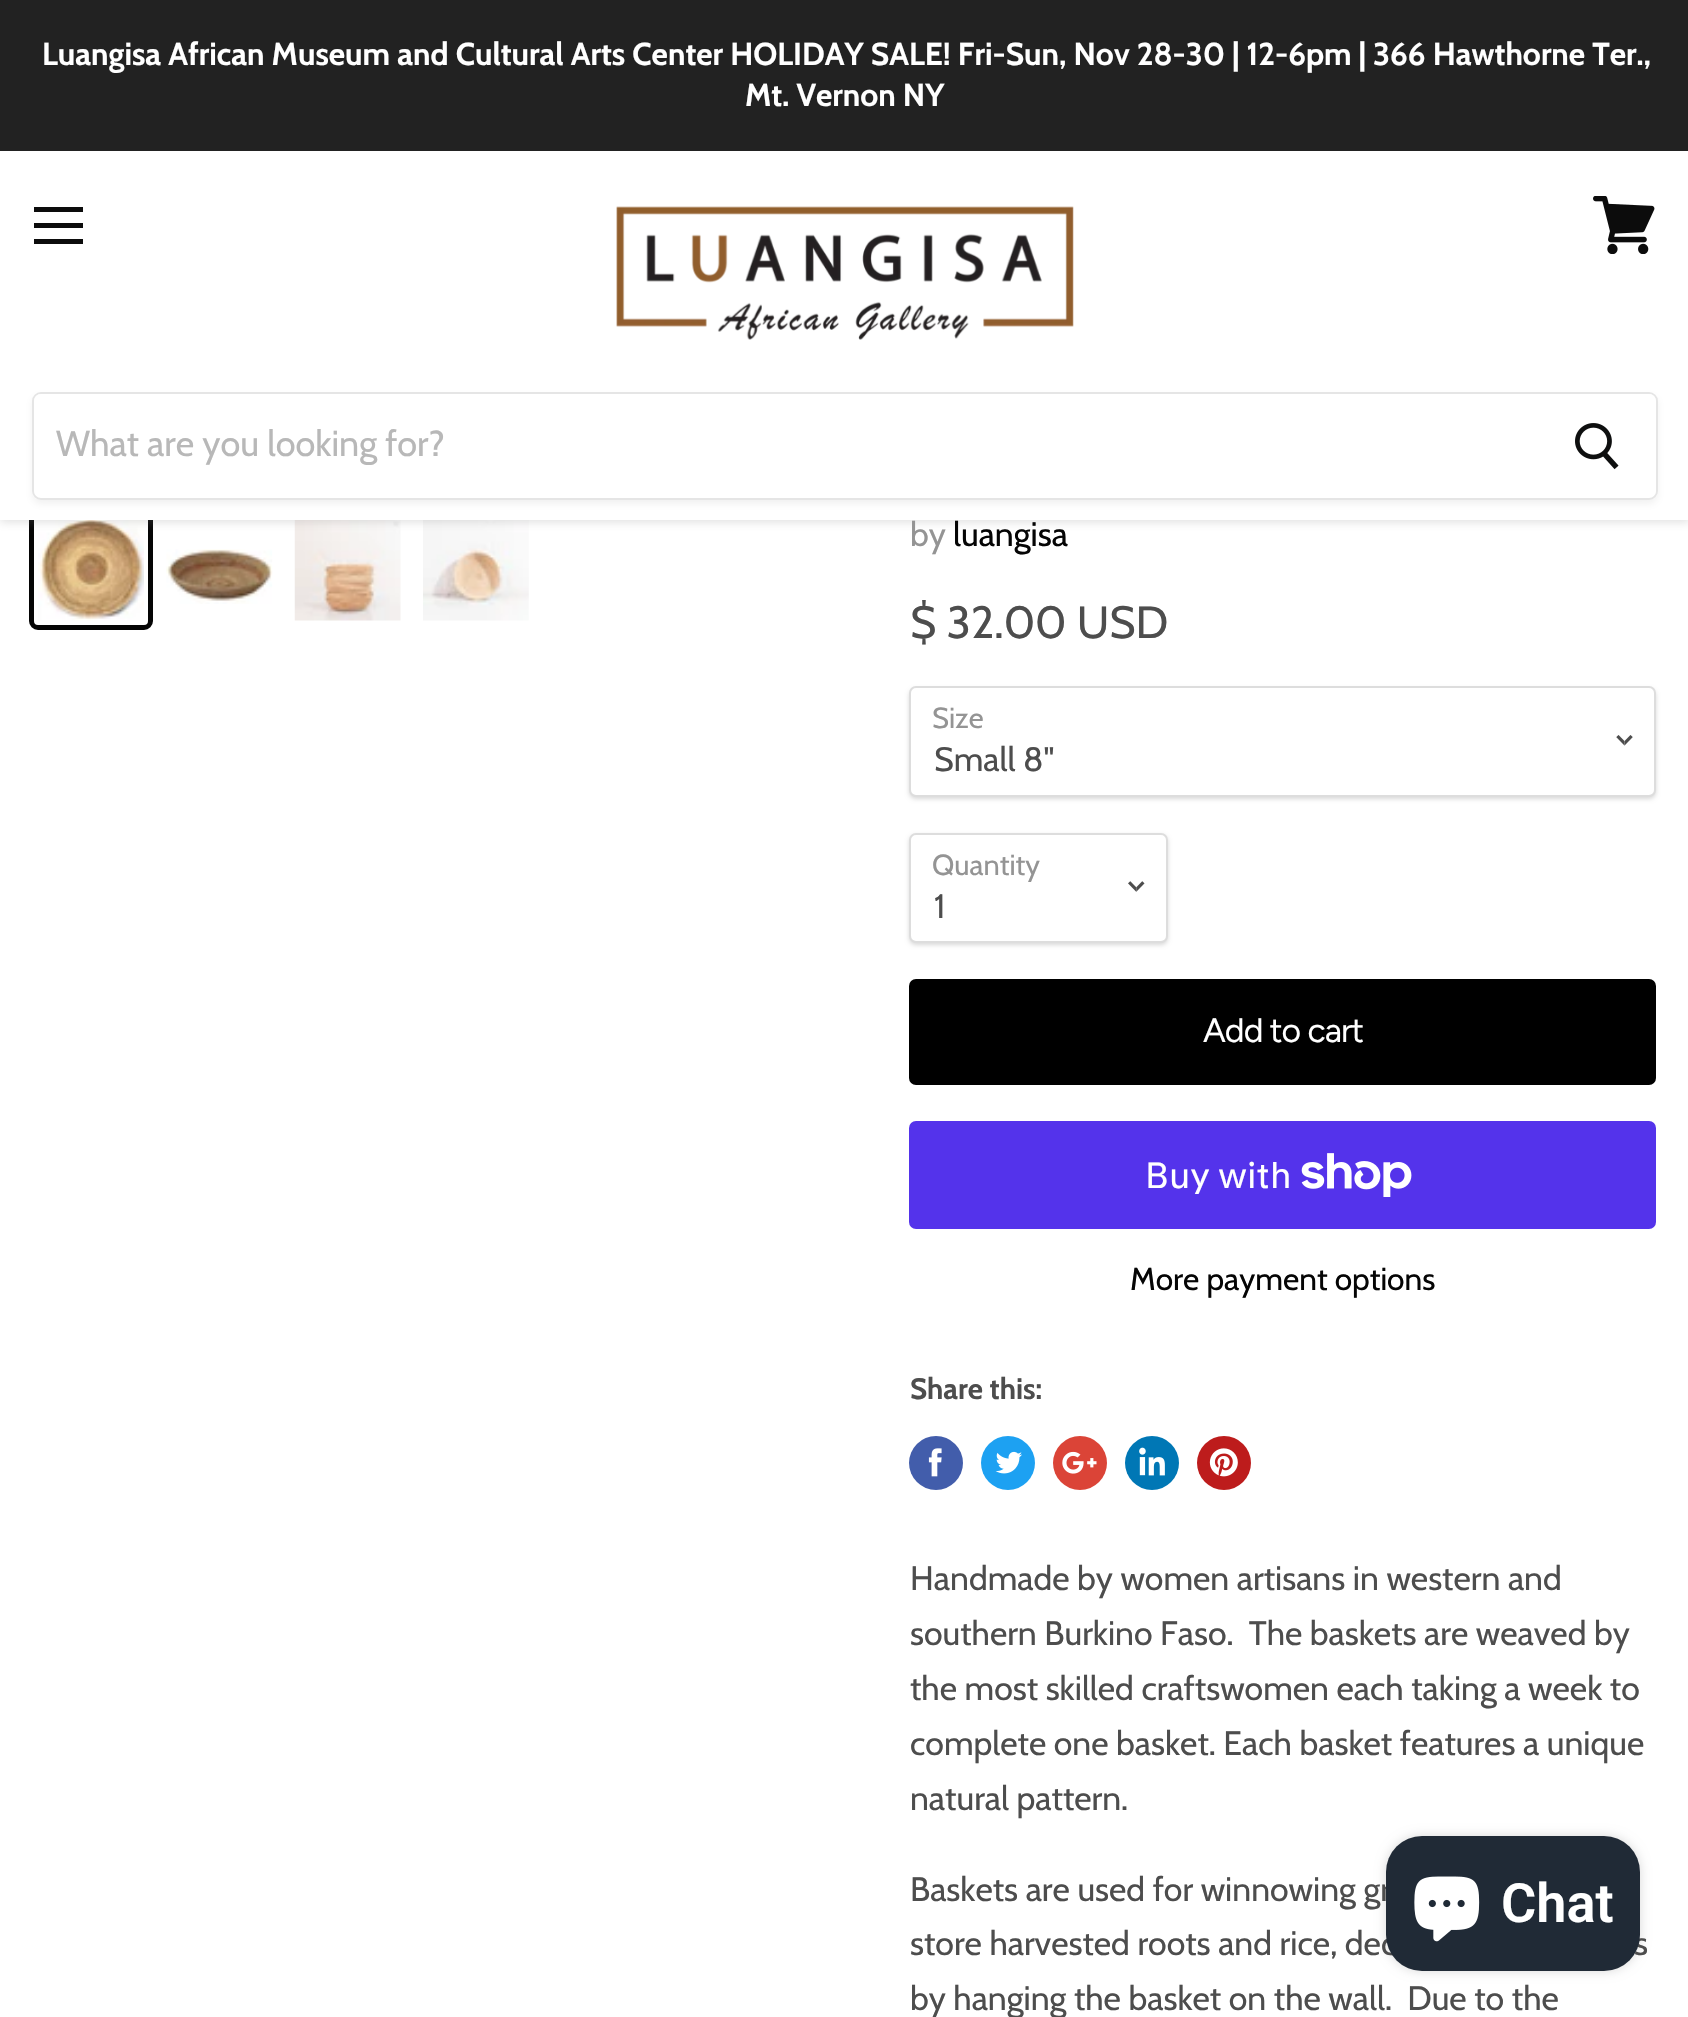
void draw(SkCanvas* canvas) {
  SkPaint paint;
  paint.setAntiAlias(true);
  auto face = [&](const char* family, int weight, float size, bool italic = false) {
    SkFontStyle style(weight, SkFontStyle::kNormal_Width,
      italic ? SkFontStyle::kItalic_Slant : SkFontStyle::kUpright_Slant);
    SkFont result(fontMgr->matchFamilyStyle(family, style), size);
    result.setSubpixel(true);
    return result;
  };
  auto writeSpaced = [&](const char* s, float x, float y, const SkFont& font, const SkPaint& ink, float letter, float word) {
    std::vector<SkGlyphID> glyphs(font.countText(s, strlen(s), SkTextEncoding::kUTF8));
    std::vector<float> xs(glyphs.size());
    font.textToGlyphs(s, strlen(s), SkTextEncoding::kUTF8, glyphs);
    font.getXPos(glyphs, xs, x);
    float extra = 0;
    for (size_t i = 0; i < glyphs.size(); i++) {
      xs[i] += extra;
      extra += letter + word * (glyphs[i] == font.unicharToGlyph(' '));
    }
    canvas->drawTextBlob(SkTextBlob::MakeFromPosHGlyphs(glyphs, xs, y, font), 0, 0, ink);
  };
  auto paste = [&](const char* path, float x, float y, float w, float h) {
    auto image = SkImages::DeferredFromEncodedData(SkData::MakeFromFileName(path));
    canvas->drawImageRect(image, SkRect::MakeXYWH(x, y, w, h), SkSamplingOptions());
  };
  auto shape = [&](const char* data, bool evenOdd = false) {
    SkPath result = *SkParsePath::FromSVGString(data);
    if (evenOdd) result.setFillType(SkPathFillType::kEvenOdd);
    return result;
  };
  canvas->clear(0xffffffff);
  paint.setStroke(true);
  paint.setStrokeWidth(5);
  paint.setColor(0xff050505);
  canvas->drawRoundRect(SkRect::MakeXYWH(31.5f, 508.5f, 119, 119), 6.5f, 6.5f, paint);
  paste("img/4.png", 38, 520, 106, 101);
  paste("img/6.png", 294, 520, 107, 101);
  paste("img/7.png", 423, 520, 106, 101);
  paint.setStroke(false);
  paint.setColor(0x407f7f7f);
  paint.setMaskFilter(SkMaskFilter::MakeBlur(kNormal_SkBlurStyle, 4.5f));
  canvas->drawRect(SkRect::MakeXYWH(0, 153, 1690, 369), paint);
  paint.setMaskFilter(nullptr);
  {
    const struct { float x, y, w, h; SkColor color; } items[] = {
      {0, 0, 1688, 151, 0xff222222},
      {0, 151, 1688, 369, 0xffffffff},
      {34, 207, 49, 5, 0xff0c0c0c},
      {34, 223, 49, 5, 0xff0c0c0c},
      {34, 239, 49, 5, 0xff0c0c0c},
    };
    for (auto [x, y, w, h, color] : items) {
      paint.setColor(color);
      canvas->drawRect(SkRect::MakeXYWH(x, y, w, h), paint);
    }
  }
  paste("img/1.png", 1593, 196, 62, 58);
  paste("img/2.png", 616, 206, 458, 134);
  canvas->save();
  canvas->clipPath(shape("M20 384H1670V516H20ZM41 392H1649C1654 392 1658 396 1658 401V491C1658 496 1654 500 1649 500H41C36 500 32 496 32 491V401C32 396 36 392 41 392Z", true), true);
  paint.setColor(0x1c7f7f7f);
  paint.setMaskFilter(SkMaskFilter::MakeBlur(kNormal_SkBlurStyle, 3.5f));
  canvas->drawRoundRect(SkRect::MakeXYWH(32, 396, 1626, 108), 9, 9, paint);
  paint.setMaskFilter(nullptr);
  canvas->restore();
  paint.setStroke(true);
  paint.setStrokeWidth(2);
  paint.setColor(0x337f7f7f);
  canvas->drawRoundRect(SkRect::MakeXYWH(33, 393, 1624, 106), 8, 8, paint);
  paint.setStroke(false);
  paint.setColor(0xffffffff);
  canvas->drawPath(shape("M41 394H1537V497H41C37 497 34 494 34 490V401C34 397 37 394 41 394Z"), paint);
  canvas->drawPath(shape("M1538 395H1649C1652.5 395 1655 397.5 1655 401V490C1655 493.5 1652.5 496 1649 496H1538Z"), paint);
  paint.setStroke(true);
  canvas->drawPath(shape("M1538 395H1649C1652.5 395 1655 397.5 1655 401V490C1655 493.5 1652.5 496 1649 496H1538Z"), paint);
  paste("img/3.png", 1575, 423, 44, 47);
  paste("img/5.png", 166, 549, 107, 55);
  paint.setStroke(false);
  paint.setColor(0x26000000);
  paint.setMaskFilter(SkMaskFilter::MakeBlur(kNormal_SkBlurStyle, 2));
  canvas->drawRoundRect(SkRect::MakeXYWH(909, 689, 747, 110), 7, 7, paint);
  paint.setMaskFilter(nullptr);
  paint.setColor(0xffffffff);
  canvas->drawRoundRect(SkRect::MakeXYWH(910, 687, 745, 109), 6, 6, paint);
  paint.setStroke(true);
  paint.setColor(0xffdddddd);
  canvas->drawRoundRect(SkRect::MakeXYWH(910, 687, 745, 109), 6, 6, paint);
  paste("img/8.png", 1616, 735, 17, 11);
  paint.setStroke(false);
  paint.setColor(0x26000000);
  paint.setMaskFilter(SkMaskFilter::MakeBlur(kNormal_SkBlurStyle, 2));
  canvas->drawRoundRect(SkRect::MakeXYWH(909, 835, 259, 110), 7, 7, paint);
  paint.setMaskFilter(nullptr);
  paint.setColor(0xffffffff);
  canvas->drawRoundRect(SkRect::MakeXYWH(910, 834, 257, 108), 6, 6, paint);
  paint.setStroke(true);
  paint.setColor(0xffdddddd);
  canvas->drawRoundRect(SkRect::MakeXYWH(910, 834, 257, 108), 6, 6, paint);
  paste("img/9.png", 1128, 881, 17, 11);
  paint.setStroke(false);
  paint.setColor(0xff000000);
  canvas->drawRoundRect(SkRect::MakeXYWH(909, 979, 747, 106), 7, 7, paint);
  paint.setColor(0xff5433eb);
  canvas->drawRoundRect(SkRect::MakeXYWH(909, 1121, 747, 108), 7, 7, paint);
  paste("img/10.png", 1301, 1153, 111, 44);
  paint.setColor(0xff425dab);
  canvas->drawCircle(936, 1463, 27, paint);
  paste("img/11.png", 928, 1448, 14, 29);
  paint.setColor(0xff1da1f2);
  canvas->drawCircle(1008, 1463, 27, paint);
  paste("img/12.png", 995, 1451, 27, 23);
  paint.setColor(0xffdb4437);
  canvas->drawCircle(1080, 1463, 27, paint);
  paste("img/13.png", 1062, 1451, 35, 23);
  paint.setColor(0xff0077b5);
  canvas->drawCircle(1152, 1463, 27, paint);
  paste("img/14.png", 1139, 1447, 26, 29);
  paint.setColor(0xffbd1c1c);
  canvas->drawCircle(1224, 1463, 27, paint);
  paste("img/15.png", 1209, 1448, 29, 29);
  paint.setColor(0x26000000);
  paint.setMaskFilter(SkMaskFilter::MakeBlur(kNormal_SkBlurStyle, 5.5f));
  canvas->drawRoundRect(SkRect::MakeXYWH(1386, 1836, 254, 135), 36, 36, paint);
  paint.setMaskFilter(nullptr);
  auto f0 = face("Cabin", 700, 31.65f);
  paint.setColor(0xffffffff);
  canvas->drawString("Luangisa African Museum and Cultural Arts Center HOLIDAY SALE! Fri-Sun, Nov 28-30 | 12-6pm | 366 Hawthorne Ter.,", 42, 65, f0, paint);
  canvas->drawString("Mt. Vernon NY", 745, 106, f0, paint);
  auto f1 = face("Cabin", 400, 36);
  paint.setColor(0xffb8b8b8);
  canvas->drawString("What are you looking for?", 56, 456, f1, paint);
  auto f2 = face("Cabin", 400, 33.75f);
  paint.setColor(0xff949494);
  canvas->drawString("by", 910, 546, f2, paint);
  paint.setColor(0xff050505);
  canvas->drawString("luangisa", 953, 546, f2, paint);
  auto f3 = face("Cabin", 400, 45);
  paint.setColor(0xff4d4d4d);
  canvas->drawString("$ 32.00 USD", 910, 638, f3, paint);
  auto f4 = face("Cabin", 400, 29);
  paint.setColor(0xff949494);
  canvas->drawString("Size", 932, 728, f4, paint);
  paint.setColor(0xff4d4d4d);
  canvas->drawString("Small 8\"", 934, 771, f2, paint);
  paint.setColor(0xff949494);
  canvas->drawString("Quantity", 932, 875, f4, paint);
  paint.setColor(0xff4d4d4d);
  canvas->drawString("1", 934, 918, f2, paint);
  auto f5 = face("Figtree", 400, 33.75f);
  paint.setColor(0xffffffff);
  writeSpaced("Add to cart", 1203, 1042, f5, paint, -1, 0);
  auto f6 = face("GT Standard", 400, 36);
  canvas->drawString("Buy with", 1145, 1188, f6, paint);
  auto f7 = face("Cabin", 400, 31.65f);
  paint.setColor(0xff050505);
  canvas->drawString("More payment options", 1130, 1290, f7, paint);
  auto f8 = face("Cabin", 700, 29.5f);
  paint.setColor(0xff4d4d4d);
  canvas->drawString("Share this:", 910, 1399, f8, paint);
  {
    const struct { const char* s; float x, y; } items[] = {
      {"Handmade by women artisans in western and", 910, 1590},
      {"southern Burkino Faso.  The baskets are weaved by", 910, 1645},
      {"the most skilled craftswomen each taking a week to", 910, 1700},
      {"complete one basket. Each basket features a unique", 910, 1755},
      {"natural pattern.", 910, 1810},
      {"Baskets are used for winnowing gr", 910, 1901},
      {"store harvested roots and rice, dec", 910, 1955},
      {"s", 1634, 1955},
      {"by hanging the basket on the wall.  Due to the", 910, 2010},
    };
    for (auto [s, x, y] : items) {
      canvas->drawString(s, x, y, f2, paint);
    }
  }
  paint.setColor(0xff202a36);
  canvas->drawRoundRect(SkRect::MakeXYWH(1386, 1836, 254, 135), 36, 36, paint);
  paste("img/16.png", 1414, 1876, 66, 66);
  auto f9 = face("Roboto", 600, 54);
  paint.setColor(0xffffffff);
  canvas->drawString("Chat", 1501, 1922, f9, paint);
}
